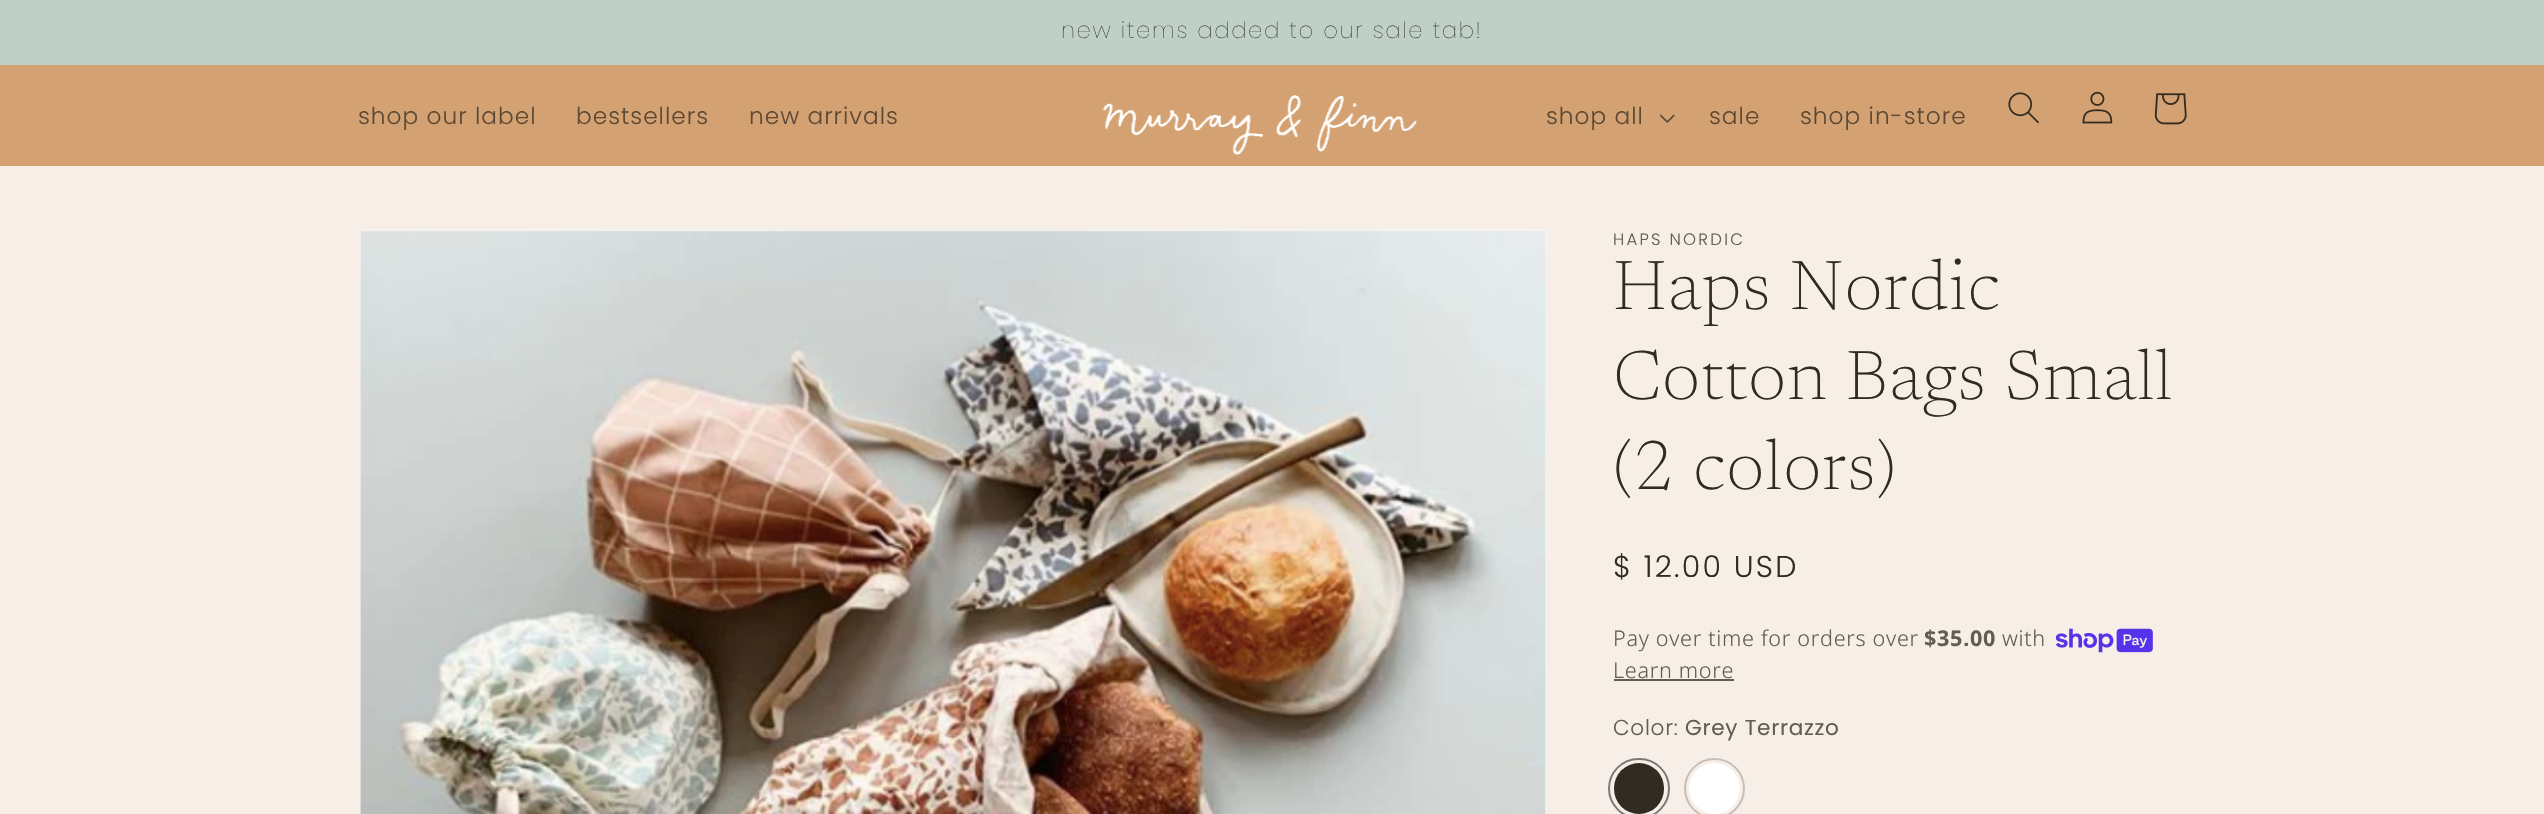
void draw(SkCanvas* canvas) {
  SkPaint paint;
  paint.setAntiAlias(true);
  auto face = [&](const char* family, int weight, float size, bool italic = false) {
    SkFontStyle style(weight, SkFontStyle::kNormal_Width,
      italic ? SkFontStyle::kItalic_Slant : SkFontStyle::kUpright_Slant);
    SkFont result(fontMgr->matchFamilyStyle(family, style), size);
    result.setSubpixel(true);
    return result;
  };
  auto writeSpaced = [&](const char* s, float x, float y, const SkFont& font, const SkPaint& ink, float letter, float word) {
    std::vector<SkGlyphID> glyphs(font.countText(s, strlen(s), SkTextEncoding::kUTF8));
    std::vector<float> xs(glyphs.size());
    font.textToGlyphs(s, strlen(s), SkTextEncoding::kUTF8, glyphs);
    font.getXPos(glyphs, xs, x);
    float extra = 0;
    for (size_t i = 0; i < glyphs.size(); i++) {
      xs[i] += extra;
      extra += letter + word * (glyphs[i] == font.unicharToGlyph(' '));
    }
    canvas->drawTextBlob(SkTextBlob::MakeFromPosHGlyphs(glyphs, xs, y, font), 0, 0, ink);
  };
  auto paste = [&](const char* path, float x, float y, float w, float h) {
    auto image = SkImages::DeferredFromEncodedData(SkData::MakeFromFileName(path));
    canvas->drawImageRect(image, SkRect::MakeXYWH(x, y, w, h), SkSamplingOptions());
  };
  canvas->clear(0xfff7efe7);
  {
    const struct { float x, y, w, h; SkColor color; } items[] = {
      {0, 0, 2544, 63, 0xffbfd1c7},
      {0, 63, 2544, 2, 0xffc1cdc0},
      {0, 65, 2544, 101, 0xffd4a272},
    };
    for (auto [x, y, w, h, color] : items) {
      paint.setColor(color);
      canvas->drawRect(SkRect::MakeXYWH(x, y, w, h), paint);
    }
  }
  paste("img/1.png", 1102, 95, 315, 60);
  paste("img/2.png", 2008, 92, 31, 32);
  paste("img/3.png", 2082, 91, 31, 33);
  paste("img/4.png", 2154, 93, 33, 32);
  paste("img/5.png", 1659, 114, 16, 9);
  paint.setStroke(true);
  paint.setStrokeWidth(2);
  paint.setColor(0xfff5f4f4);
  canvas->drawRect(SkRect::MakeXYWH(360, 230, 1186, 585), paint);
  paste("img/6.png", 359, 230, 1187, 584);
  paste("img/7.png", 2055, 628, 98, 25);
  paint.setStroke(false);
  paint.setColor(0xff635c53);
  canvas->drawRect(SkRect::MakeXYWH(1614, 679, 120, 2), paint);
  paint.setColor(0xff322b21);
  canvas->drawRoundRect(SkRect::MakeXYWH(1614, 763, 50, 51), 25, 25, paint);
  paint.setStroke(true);
  paint.setColor(0xff7c7874);
  canvas->drawRoundRect(SkRect::MakeXYWH(1609, 759, 60, 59), 29.5f, 29.5f, paint);
  paint.setStroke(false);
  paint.setColor(0xffffffff);
  canvas->drawCircle(1714.5f, 788.5f, 25.5f, paint);
  paint.setStroke(true);
  paint.setColor(0xffc6bfb9);
  canvas->drawCircle(1714.5f, 788.5f, 29.5f, paint);
  auto f0 = face("Poppins", 100, 22.75f);
  paint.setStroke(false);
  paint.setColor(0xff322b21);
  writeSpaced("new items added to our sale tab!", 1061, 38, f0, paint, 1.65f, 0);
  auto f1 = face("Poppins", 300, 23.25f);
  paint.setColor(0xff5b4935);
  {
    const struct { const char* s; float x, y; } items[] = {
      {"shop our label", 358, 124},
      {"bestsellers", 576, 124},
      {"new arrivals", 749, 124},
      {"shop all", 1546, 124},
      {"sale", 1709, 124},
      {"shop in-store", 1800, 124},
    };
    for (auto [s, x, y] : items) {
      writeSpaced(s, x, y, f1, paint, 1, 0);
    }
  }
  auto f2 = face("Poppins", 300, 16.5f);
  paint.setColor(0xff635c53);
  writeSpaced("HAPS NORDIC", 1613, 245, f2, paint, 2.25f, 0);
  auto f3 = face("Newsreader", 200, 70);
  paint.setColor(0xff322b21);
  {
    const struct { const char* s; float x, y; } items[] = {
      {"Haps Nordic", 1613, 309},
      {"Cotton Bags Small", 1613, 399},
      {"(2 colors)", 1613, 489},
    };
    for (auto [s, x, y] : items) {
      writeSpaced(s, x, y, f3, paint, 1, 0);
    }
  }
  auto f4 = face("Poppins", 300, 30);
  writeSpaced("$ 12.00 USD", 1613, 577, f4, paint, 2.25f, 0);
  auto f5 = face("Noto Sans", 300, 21.6f);
  paint.setColor(0xff635c53);
  writeSpaced("Pay over time for orders over", 1613, 646, f5, paint, 0.7f, 0);
  auto f6 = face("Noto Sans", 700, 21.6f);
  writeSpaced("$35.00", 1924, 646, f6, paint, 0.7f, 0);
  writeSpaced("with", 2002, 646, f5, paint, 0.7f, 0);
  writeSpaced("Learn more", 1613, 678, f5, paint, 0.7f, 0);
  auto f7 = face("Poppins", 300, 21.6f);
  writeSpaced("Color:", 1613, 735, f7, paint, 0.7f, 0);
  auto f8 = face("Poppins", 400, 21.6f);
  writeSpaced("Grey Terrazzo", 1685, 735, f8, paint, 0.7f, 0);
}
